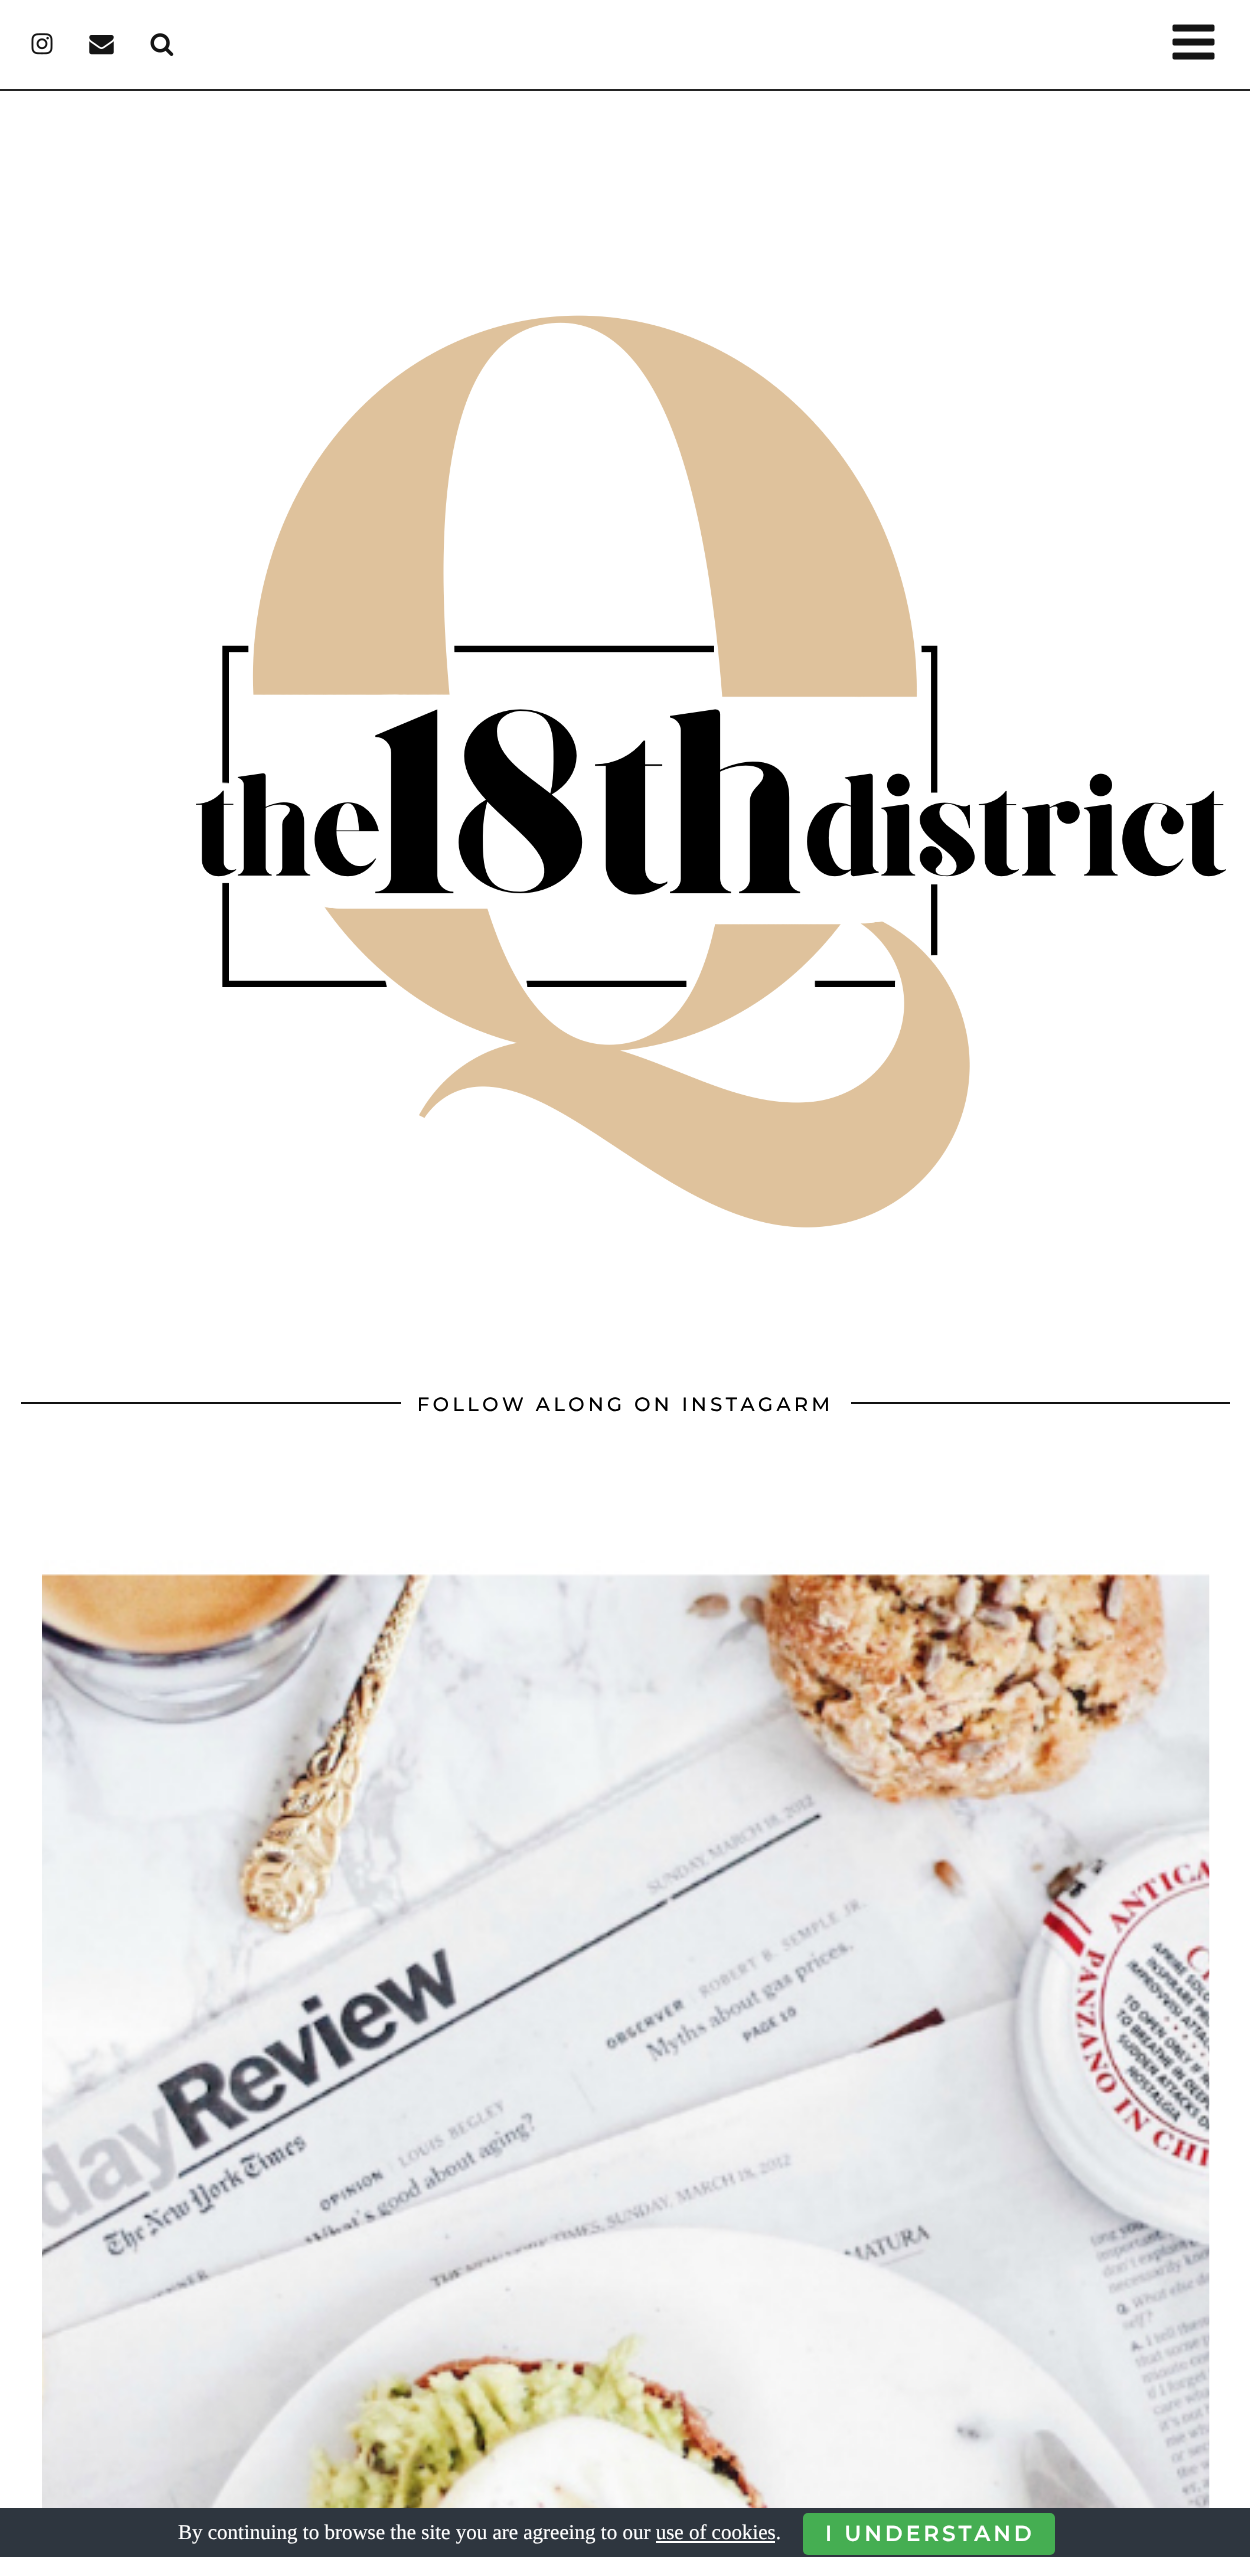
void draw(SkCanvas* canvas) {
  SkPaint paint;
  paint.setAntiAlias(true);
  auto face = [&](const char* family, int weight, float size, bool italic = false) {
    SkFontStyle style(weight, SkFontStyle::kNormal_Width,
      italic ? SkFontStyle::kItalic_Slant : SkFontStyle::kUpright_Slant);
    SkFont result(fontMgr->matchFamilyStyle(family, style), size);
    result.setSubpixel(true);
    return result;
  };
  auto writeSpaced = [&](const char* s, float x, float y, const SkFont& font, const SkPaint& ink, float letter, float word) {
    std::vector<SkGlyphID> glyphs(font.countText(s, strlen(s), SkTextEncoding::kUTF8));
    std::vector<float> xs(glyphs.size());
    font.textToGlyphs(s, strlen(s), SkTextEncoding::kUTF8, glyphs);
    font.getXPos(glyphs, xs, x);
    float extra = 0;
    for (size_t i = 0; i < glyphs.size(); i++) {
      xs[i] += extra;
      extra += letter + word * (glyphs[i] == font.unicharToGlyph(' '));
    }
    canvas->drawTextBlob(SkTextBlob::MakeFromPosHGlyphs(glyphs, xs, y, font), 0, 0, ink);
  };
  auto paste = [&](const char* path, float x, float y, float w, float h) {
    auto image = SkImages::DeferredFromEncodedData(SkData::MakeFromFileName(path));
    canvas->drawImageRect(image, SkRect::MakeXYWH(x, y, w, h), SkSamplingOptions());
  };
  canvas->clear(0xffffffff);
  paint.setColor(0xff242424);
  canvas->drawRect(SkRect::MakeXYWH(0, 89, 1250, 2), paint);
  paste("img/1.png", 31, 33, 22, 22);
  paste("img/2.png", 89, 35, 25, 20);
  paste("img/3.png", 150, 33, 24, 23);
  paste("img/4.png", 1172, 24, 43, 36);
  paste("img/5.png", 196, 315, 1030, 913);
  paint.setColor(0xff111111);
  canvas->drawRect(SkRect::MakeXYWH(21, 1402, 1209, 2), paint);
  paint.setColor(0xffffffff);
  canvas->drawRect(SkRect::MakeXYWH(401, 1402, 450, 2), paint);
  paste("img/6.png", 42, 1560, 1168, 948);
  paint.setColor(0xff2e363f);
  canvas->drawRect(SkRect::MakeXYWH(0, 2508, 1250, 49), paint);
  paint.setColor(0xff45ae52);
  canvas->drawRoundRect(SkRect::MakeXYWH(803, 2513, 252, 42), 5, 5, paint);
  paint.setColor(0xffffffff);
  canvas->drawRect(SkRect::MakeXYWH(656, 2541, 119, 2), paint);
  auto f0 = face("Montserrat", 100, 19.25f);
  paint.setColor(0xff000000);
  writeSpaced("FOLLOW ALONG ON INSTAGARM", 417, 1411, f0, paint, 3.5f, 0);
  auto f1 = face("Liberation Serif", 400, 21);
  paint.setColor(0xffffffff);
  canvas->drawString("By continuing to browse the site you are agreeing to our use of cookies.", 178, 2539, f1, paint);
  auto f2 = face("Montserrat", 700, 21);
  writeSpaced("I UNDERSTAND", 825, 2541, f2, paint, 3.5f, 0);
}
